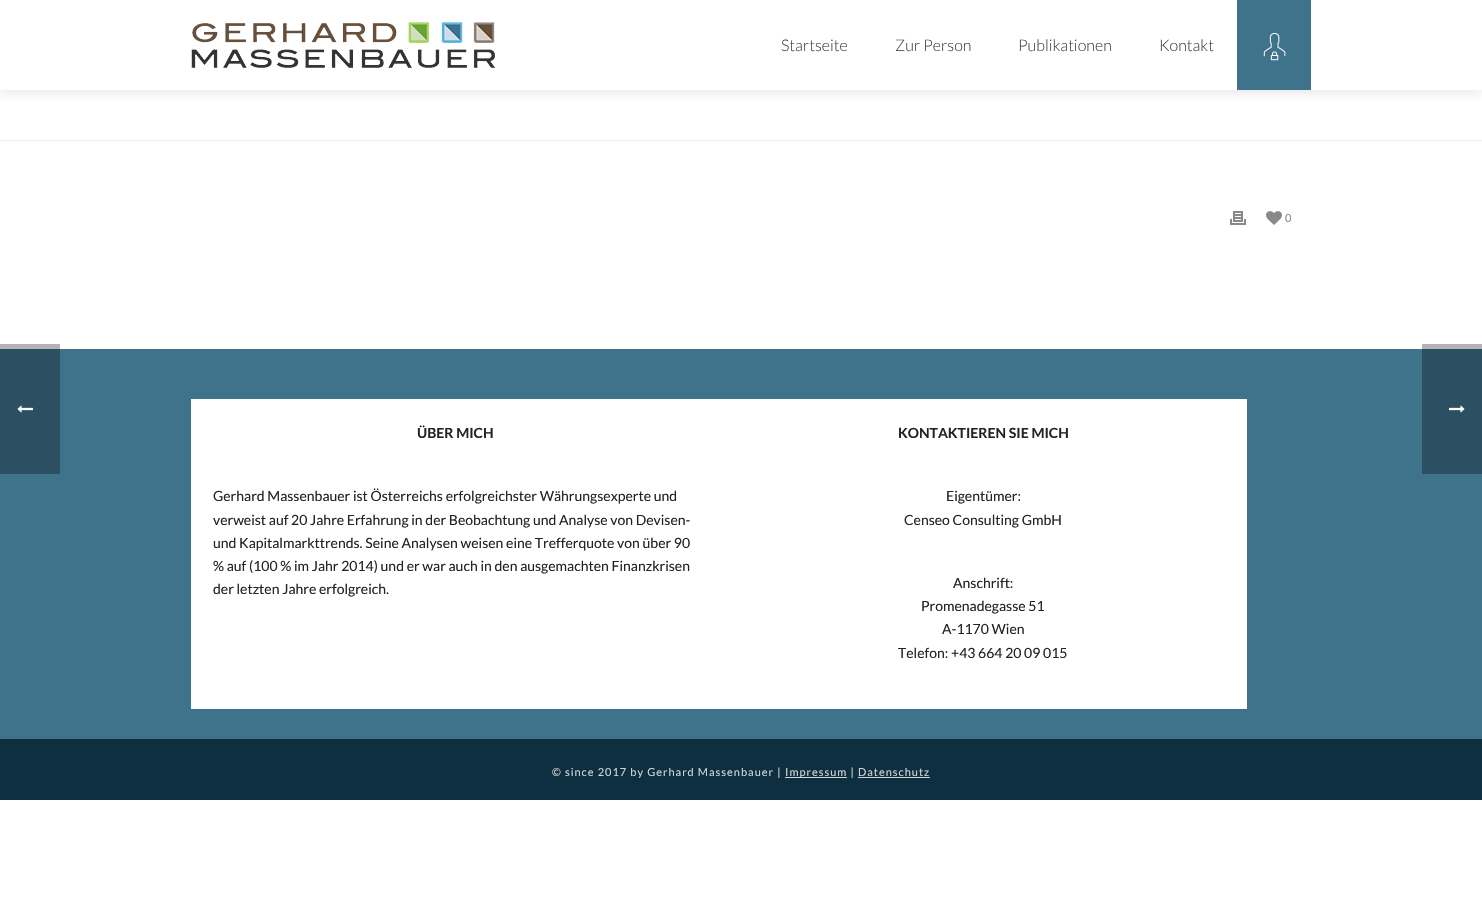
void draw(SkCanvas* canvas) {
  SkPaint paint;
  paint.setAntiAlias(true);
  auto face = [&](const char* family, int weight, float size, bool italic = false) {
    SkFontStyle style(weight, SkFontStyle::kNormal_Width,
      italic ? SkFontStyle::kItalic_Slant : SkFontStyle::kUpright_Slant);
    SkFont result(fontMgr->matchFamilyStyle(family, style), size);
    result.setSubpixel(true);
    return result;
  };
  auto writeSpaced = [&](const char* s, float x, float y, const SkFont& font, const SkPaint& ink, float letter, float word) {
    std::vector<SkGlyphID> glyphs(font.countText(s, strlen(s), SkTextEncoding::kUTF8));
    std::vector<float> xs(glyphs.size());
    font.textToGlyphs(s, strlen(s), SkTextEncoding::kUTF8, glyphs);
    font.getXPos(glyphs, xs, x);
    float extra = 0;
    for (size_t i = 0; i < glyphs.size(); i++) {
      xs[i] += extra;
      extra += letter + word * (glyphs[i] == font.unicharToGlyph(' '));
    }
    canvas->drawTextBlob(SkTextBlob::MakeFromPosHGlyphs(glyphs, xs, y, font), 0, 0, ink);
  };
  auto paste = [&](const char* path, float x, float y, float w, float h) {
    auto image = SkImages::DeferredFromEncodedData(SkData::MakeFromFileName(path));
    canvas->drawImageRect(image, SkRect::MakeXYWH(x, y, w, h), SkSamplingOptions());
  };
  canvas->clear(0xffffffff);
  {
    const struct { float x, y, w, h; SkColor color; } items[] = {
      {1422, 344, 60, 5, 0xffb3b3b3},
      {0, 344, 60, 5, 0xffb3b3b3},
      {0, 140, 1482, 1, 0xffededed},
    };
    for (auto [x, y, w, h, color] : items) {
      paint.setColor(color);
      canvas->drawRect(SkRect::MakeXYWH(x, y, w, h), paint);
    }
  }
  canvas->save();
  canvas->clipRect(SkRect::MakeXYWH(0, 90, 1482, 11));
  paint.setColor(0x45808080);
  paint.setMaskFilter(SkMaskFilter::MakeBlur(kNormal_SkBlurStyle, 7.5f));
  canvas->drawRect(SkRect::MakeXYWH(0, 0, 1482, 90), paint);
  paint.setMaskFilter(nullptr);
  canvas->restore();
  paste("img/1.png", 191, 22, 304, 46);
  paint.setColor(0xff3f728b);
  canvas->drawRect(SkRect::MakeXYWH(1237, 0, 74, 90), paint);
  paste("img/2.png", 1263, 33, 23, 28);
  paste("img/3.png", 1230, 211, 16, 14);
  paste("img/4.png", 1266, 211, 16, 14);
  {
    const struct { float x, y, w, h; SkColor color; } items[] = {
      {0, 349, 1482, 390, 0xff3f728b},
      {1422, 349, 60, 125, 0xff2c5061},
      {0, 349, 60, 125, 0xff2c5061},
      {191, 399, 1056, 310, 0xffffffff},
      {0, 739, 1482, 61, 0xff0d2f40},
      {785, 777, 62, 1, 0xffcfd5d9},
      {858, 777, 72, 1, 0xffcfd5d9},
    };
    for (auto [x, y, w, h, color] : items) {
      paint.setColor(color);
      canvas->drawRect(SkRect::MakeXYWH(x, y, w, h), paint);
    }
  }
  paste("img/5.png", 17, 405, 16, 8);
  paste("img/6.png", 1449, 405, 16, 8);
  auto f0 = face("Lato", 300, 16);
  paint.setColor(0xff444444);
  {
    const struct { const char* s; float x, y; } items[] = {
      {"Startseite", 781, 51},
      {"Zur Person", 895, 51},
      {"Publikationen", 1018, 51},
      {"Kontakt", 1159, 51},
    };
    for (auto [s, x, y] : items) {
      canvas->drawString(s, x, y, f0, paint);
    }
  }
  auto f1 = face("Lato", 400, 11);
  paint.setColor(0xff898989);
  canvas->drawString("0", 1285, 222, f1, paint);
  auto f2 = face("Lato", 700, 14);
  paint.setColor(0xff232323);
  canvas->drawString("ÜBER MICH", 417, 438, f2, paint);
  auto f3 = face("Lato", 400, 14);
  {
    const struct { const char* s; float x, y; } items[] = {
      {"Gerhard Massenbauer ist Österreichs erfolgreichster Währungsexperte und", 213, 501},
      {"verweist auf 20 Jahre Erfahrung in der Beobachtung und Analyse von Devisen-", 213, 525},
      {"und Kapitalmarkttrends. Seine Analysen weisen eine Trefferquote von über 90", 213, 548},
      {"% auf (100 % im Jahr 2014) und er war auch in den ausgemachten Finanzkrisen", 213, 571},
      {"der letzten Jahre erfolgreich.", 213, 594},
    };
    for (auto [s, x, y] : items) {
      canvas->drawString(s, x, y, f3, paint);
    }
  }
  canvas->drawString("KONTAKTIEREN SIE MICH", 898, 438, f2, paint);
  {
    const struct { const char* s; float x, y; } items[] = {
      {"Eigentümer:", 946, 501},
      {"Censeo Consulting GmbH", 904, 525},
      {"Anschrift:", 953, 588},
      {"Promenadegasse 51", 921, 611},
      {"A-1170 Wien", 942, 634},
      {"Telefon: +43 664 20 09 015", 898, 658},
    };
    for (auto [s, x, y] : items) {
      canvas->drawString(s, x, y, f3, paint);
    }
  }
  paint.setColor(0xffcfd5d9);
  writeSpaced("© since 2017 by Gerhard Massenbauer |", 552, 776, f1, paint, 1, 0);
  writeSpaced("Impressum | Datenschutz", 785, 776, f1, paint, 1, 0);
}
